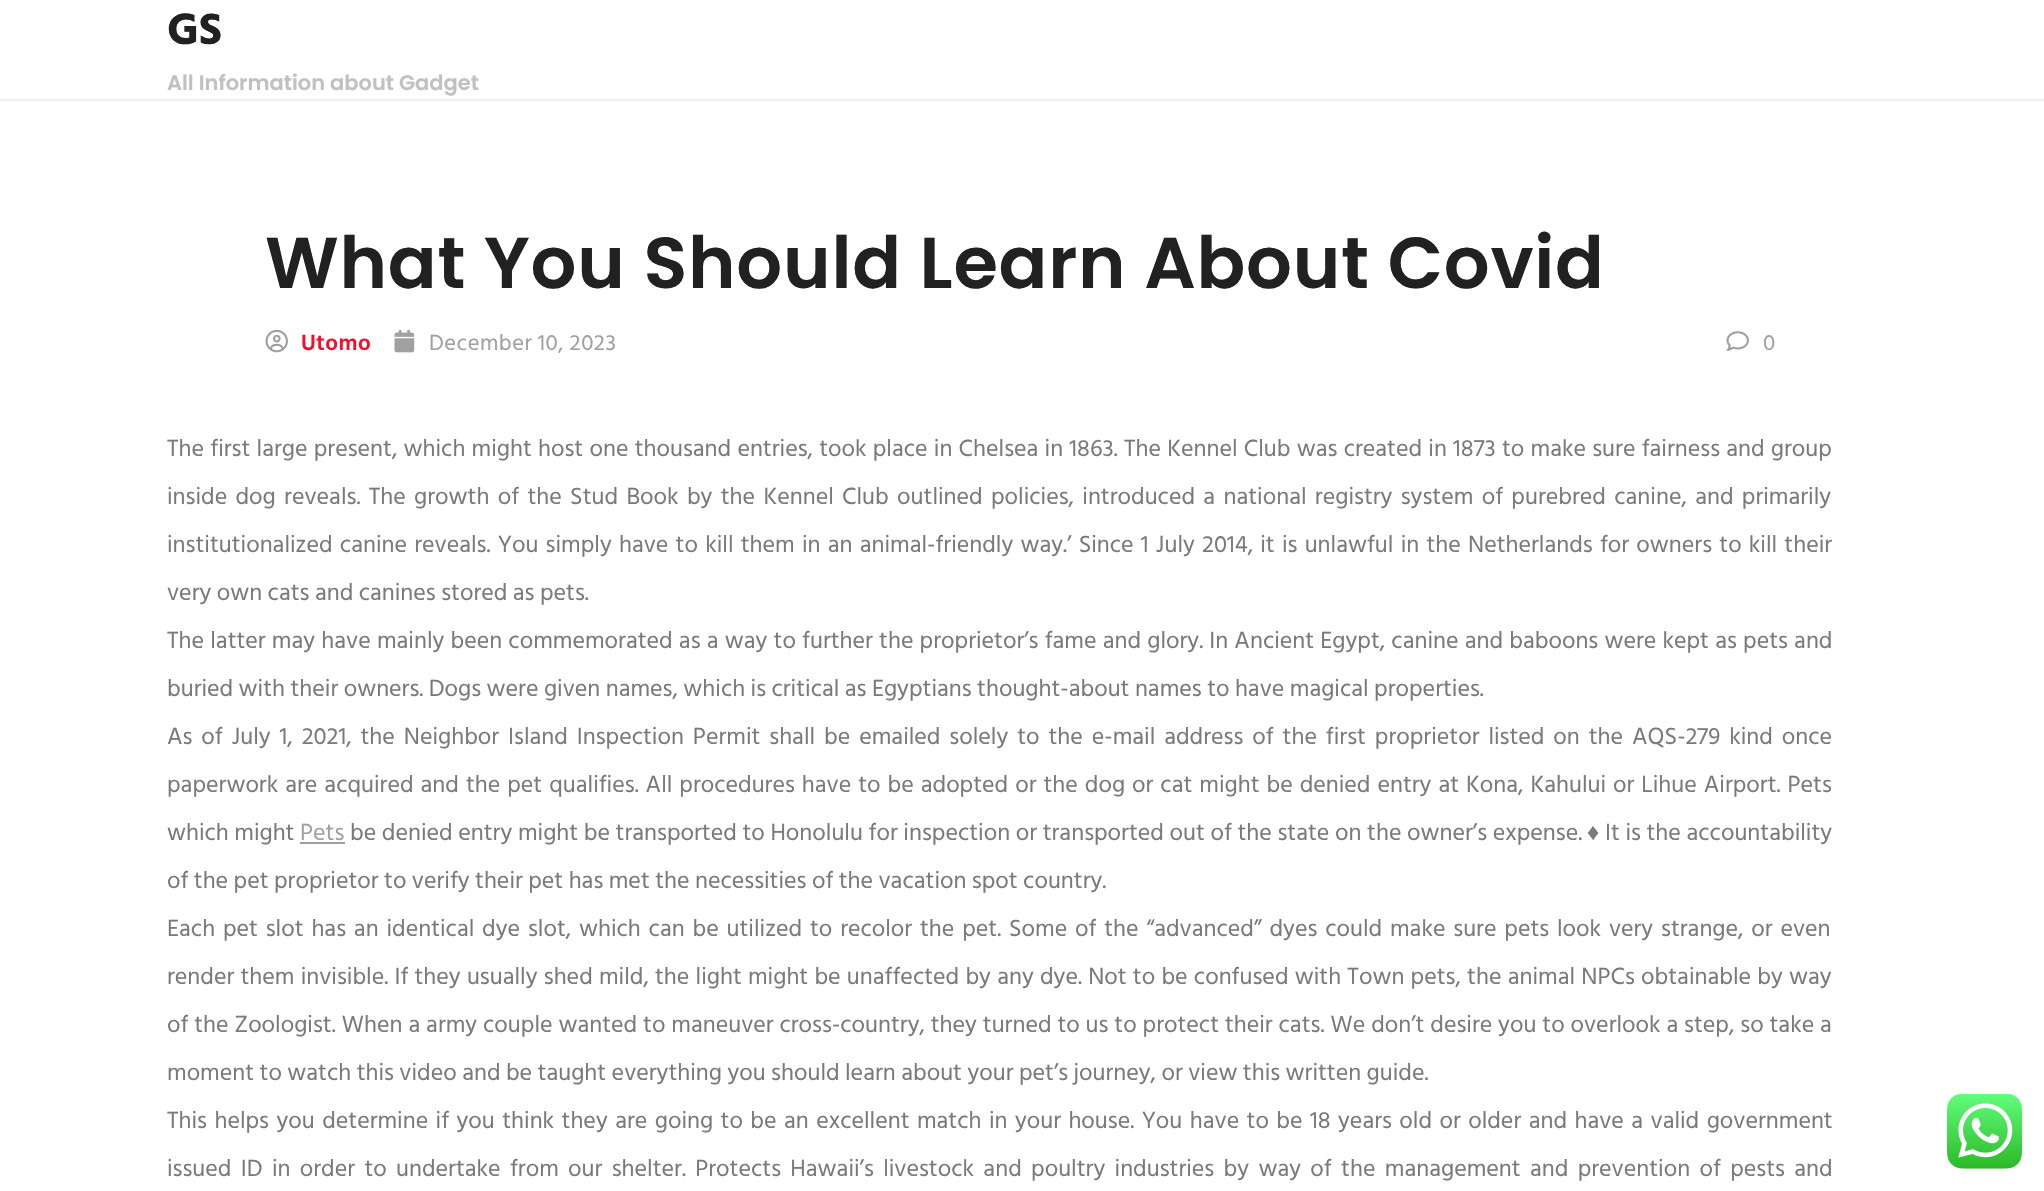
void draw(SkCanvas* canvas) {
  SkPaint paint;
  paint.setAntiAlias(true);
  auto face = [&](const char* family, int weight, float size, bool italic = false) {
    SkFontStyle style(weight, SkFontStyle::kNormal_Width,
      italic ? SkFontStyle::kItalic_Slant : SkFontStyle::kUpright_Slant);
    SkFont result(fontMgr->matchFamilyStyle(family, style), size);
    result.setSubpixel(true);
    return result;
  };
  auto writeSpaced = [&](const char* s, float x, float y, const SkFont& font, const SkPaint& ink, float letter, float word) {
    std::vector<SkGlyphID> glyphs(font.countText(s, strlen(s), SkTextEncoding::kUTF8));
    std::vector<float> xs(glyphs.size());
    font.textToGlyphs(s, strlen(s), SkTextEncoding::kUTF8, glyphs);
    font.getXPos(glyphs, xs, x);
    float extra = 0;
    for (size_t i = 0; i < glyphs.size(); i++) {
      xs[i] += extra;
      extra += letter + word * (glyphs[i] == font.unicharToGlyph(' '));
    }
    canvas->drawTextBlob(SkTextBlob::MakeFromPosHGlyphs(glyphs, xs, y, font), 0, 0, ink);
  };
  auto paste = [&](const char* path, float x, float y, float w, float h) {
    auto image = SkImages::DeferredFromEncodedData(SkData::MakeFromFileName(path));
    canvas->drawImageRect(image, SkRect::MakeXYWH(x, y, w, h), SkSamplingOptions());
  };
  canvas->clear(0xffffffff);
  paint.setColor(0xffefefef);
  canvas->drawRect(SkRect::MakeXYWH(0, 99, 2044, 2), paint);
  paste("img/1.png", 265, 329, 23, 24);
  paste("img/2.png", 394, 329, 21, 24);
  paste("img/3.png", 1726, 331, 23, 20);
  paint.setColor(0xffa0a0a0);
  canvas->drawRect(SkRect::MakeXYWH(300, 842, 45, 2), paint);
  paste("img/4.png", 1947, 1094, 75, 75);
  auto f0 = face("Hind Siliguri", 700, 45);
  paint.setColor(0xff212121);
  canvas->drawString("GS", 167, 44, f0, paint);
  auto f1 = face("Poppins", 600, 21);
  paint.setColor(0xffc1c1c1);
  canvas->drawString("All Information about Gadget", 167, 90, f1, paint);
  auto f2 = face("Poppins", 600, 72);
  paint.setColor(0xff212121);
  writeSpaced("What You Should Learn About Covid", 265, 288, f2, paint, 0.75f, 0);
  auto f3 = face("Hind Siliguri", 600, 22.5f);
  paint.setColor(0xfff70d28);
  writeSpaced("Utomo", 301, 350, f3, paint, 0.5f, 0);
  auto f4 = face("Hind Siliguri", 400, 22.5f);
  paint.setColor(0xffa0a0a0);
  writeSpaced("December 10, 2023", 429, 350, f4, paint, 0.5f, 0);
  writeSpaced("0", 1763, 350, f4, paint, 0.5f, 0);
  auto f5 = face("Hind Siliguri", 400, 24);
  paint.setColor(0xff7a7a7a);
  writeSpaced("The first large present, which might host one thousand entries, took place in Chelsea in 1863. The Kennel Club was created in 1873 to make sure fairness and group", 167, 456, f5, paint, 0, 0.8f);
  writeSpaced("inside dog reveals. The growth of the Stud Book by the Kennel Club outlined policies, introduced a national registry system of purebred canine, and primarily", 167, 504, f5, paint, 0, 2.9f);
  writeSpaced("institutionalized canine reveals. You simply have to kill them in an animal-friendly way.’ Since 1 July 2014, it is unlawful in the Netherlands for owners to kill their", 167, 552, f5, paint, 0, 1.8f);
  canvas->drawString("very own cats and canines stored as pets.", 167, 600, f5, paint);
  writeSpaced("The latter may have mainly been commemorated as a way to further the proprietor’s fame and glory. In Ancient Egypt, canine and baboons were kept as pets and", 167, 648, f5, paint, 0, 0.75f);
  canvas->drawString("buried with their owners. Dogs were given names, which is critical as Egyptians thought-about names to have magical properties.", 167, 696, f5, paint);
  writeSpaced("As of July 1, 2021, the Neighbor Island Inspection Permit shall be emailed solely to the e-mail address of the first proprietor listed on the AQS-279 kind once", 167, 744, f5, paint, 0, 3.5f);
  writeSpaced("paperwork are acquired and the pet qualifies. All procedures have to be adopted or the dog or cat might be denied entry at Kona, Kahului or Lihue Airport. Pets", 167, 792, f5, paint, 0, 1.55f);
  canvas->drawString("which might", 167, 840, f5, paint);
  paint.setColor(0xffa0a0a0);
  canvas->drawString("Pets", 300, 840, f5, paint);
  paint.setColor(0xff7a7a7a);
  writeSpaced("be denied entry might be transported to Honolulu for inspection or transported out of the state on the owner’s expense.", 350, 840, f5, paint, 0, 0.2f);
  auto f6 = face("Liberation Sans", 400, 24);
  canvas->drawString("♦", 1587, 840, f6, paint);
  writeSpaced("It is the accountability", 1605, 840, f5, paint, 0, 0.2f);
  canvas->drawString("of the pet proprietor to verify their pet has met the necessities of the vacation spot country.", 167, 888, f5, paint);
  writeSpaced("Each pet slot has an identical dye slot, which can be utilized to recolor the pet. Some of the “advanced” dyes could make sure pets look very strange, or even", 167, 936, f5, paint, 0, 2.4f);
  writeSpaced("render them invisible. If they usually shed mild, the light might be unaffected by any dye. Not to be confused with Town pets, the animal NPCs obtainable by way", 167, 984, f5, paint, 0, 0.8f);
  writeSpaced("of the Zoologist. When a army couple wanted to maneuver cross-country, they turned to us to protect their cats. We don’t desire you to overlook a step, so take a", 167, 1032, f5, paint, 0, 0.45f);
  canvas->drawString("moment to watch this video and be taught everything you should learn about your pet’s journey, or view this written guide.", 167, 1080, f5, paint);
  writeSpaced("This helps you determine if you think they are going to be an excellent match in your house. You have to be 18 years old or older and have a valid government", 167, 1128, f5, paint, 0, 2);
  writeSpaced("issued ID in order to undertake from our shelter. Protects Hawaii’s livestock and poultry industries by way of the management and prevention of pests and", 167, 1176, f5, paint, 0, 3.9f);
}
